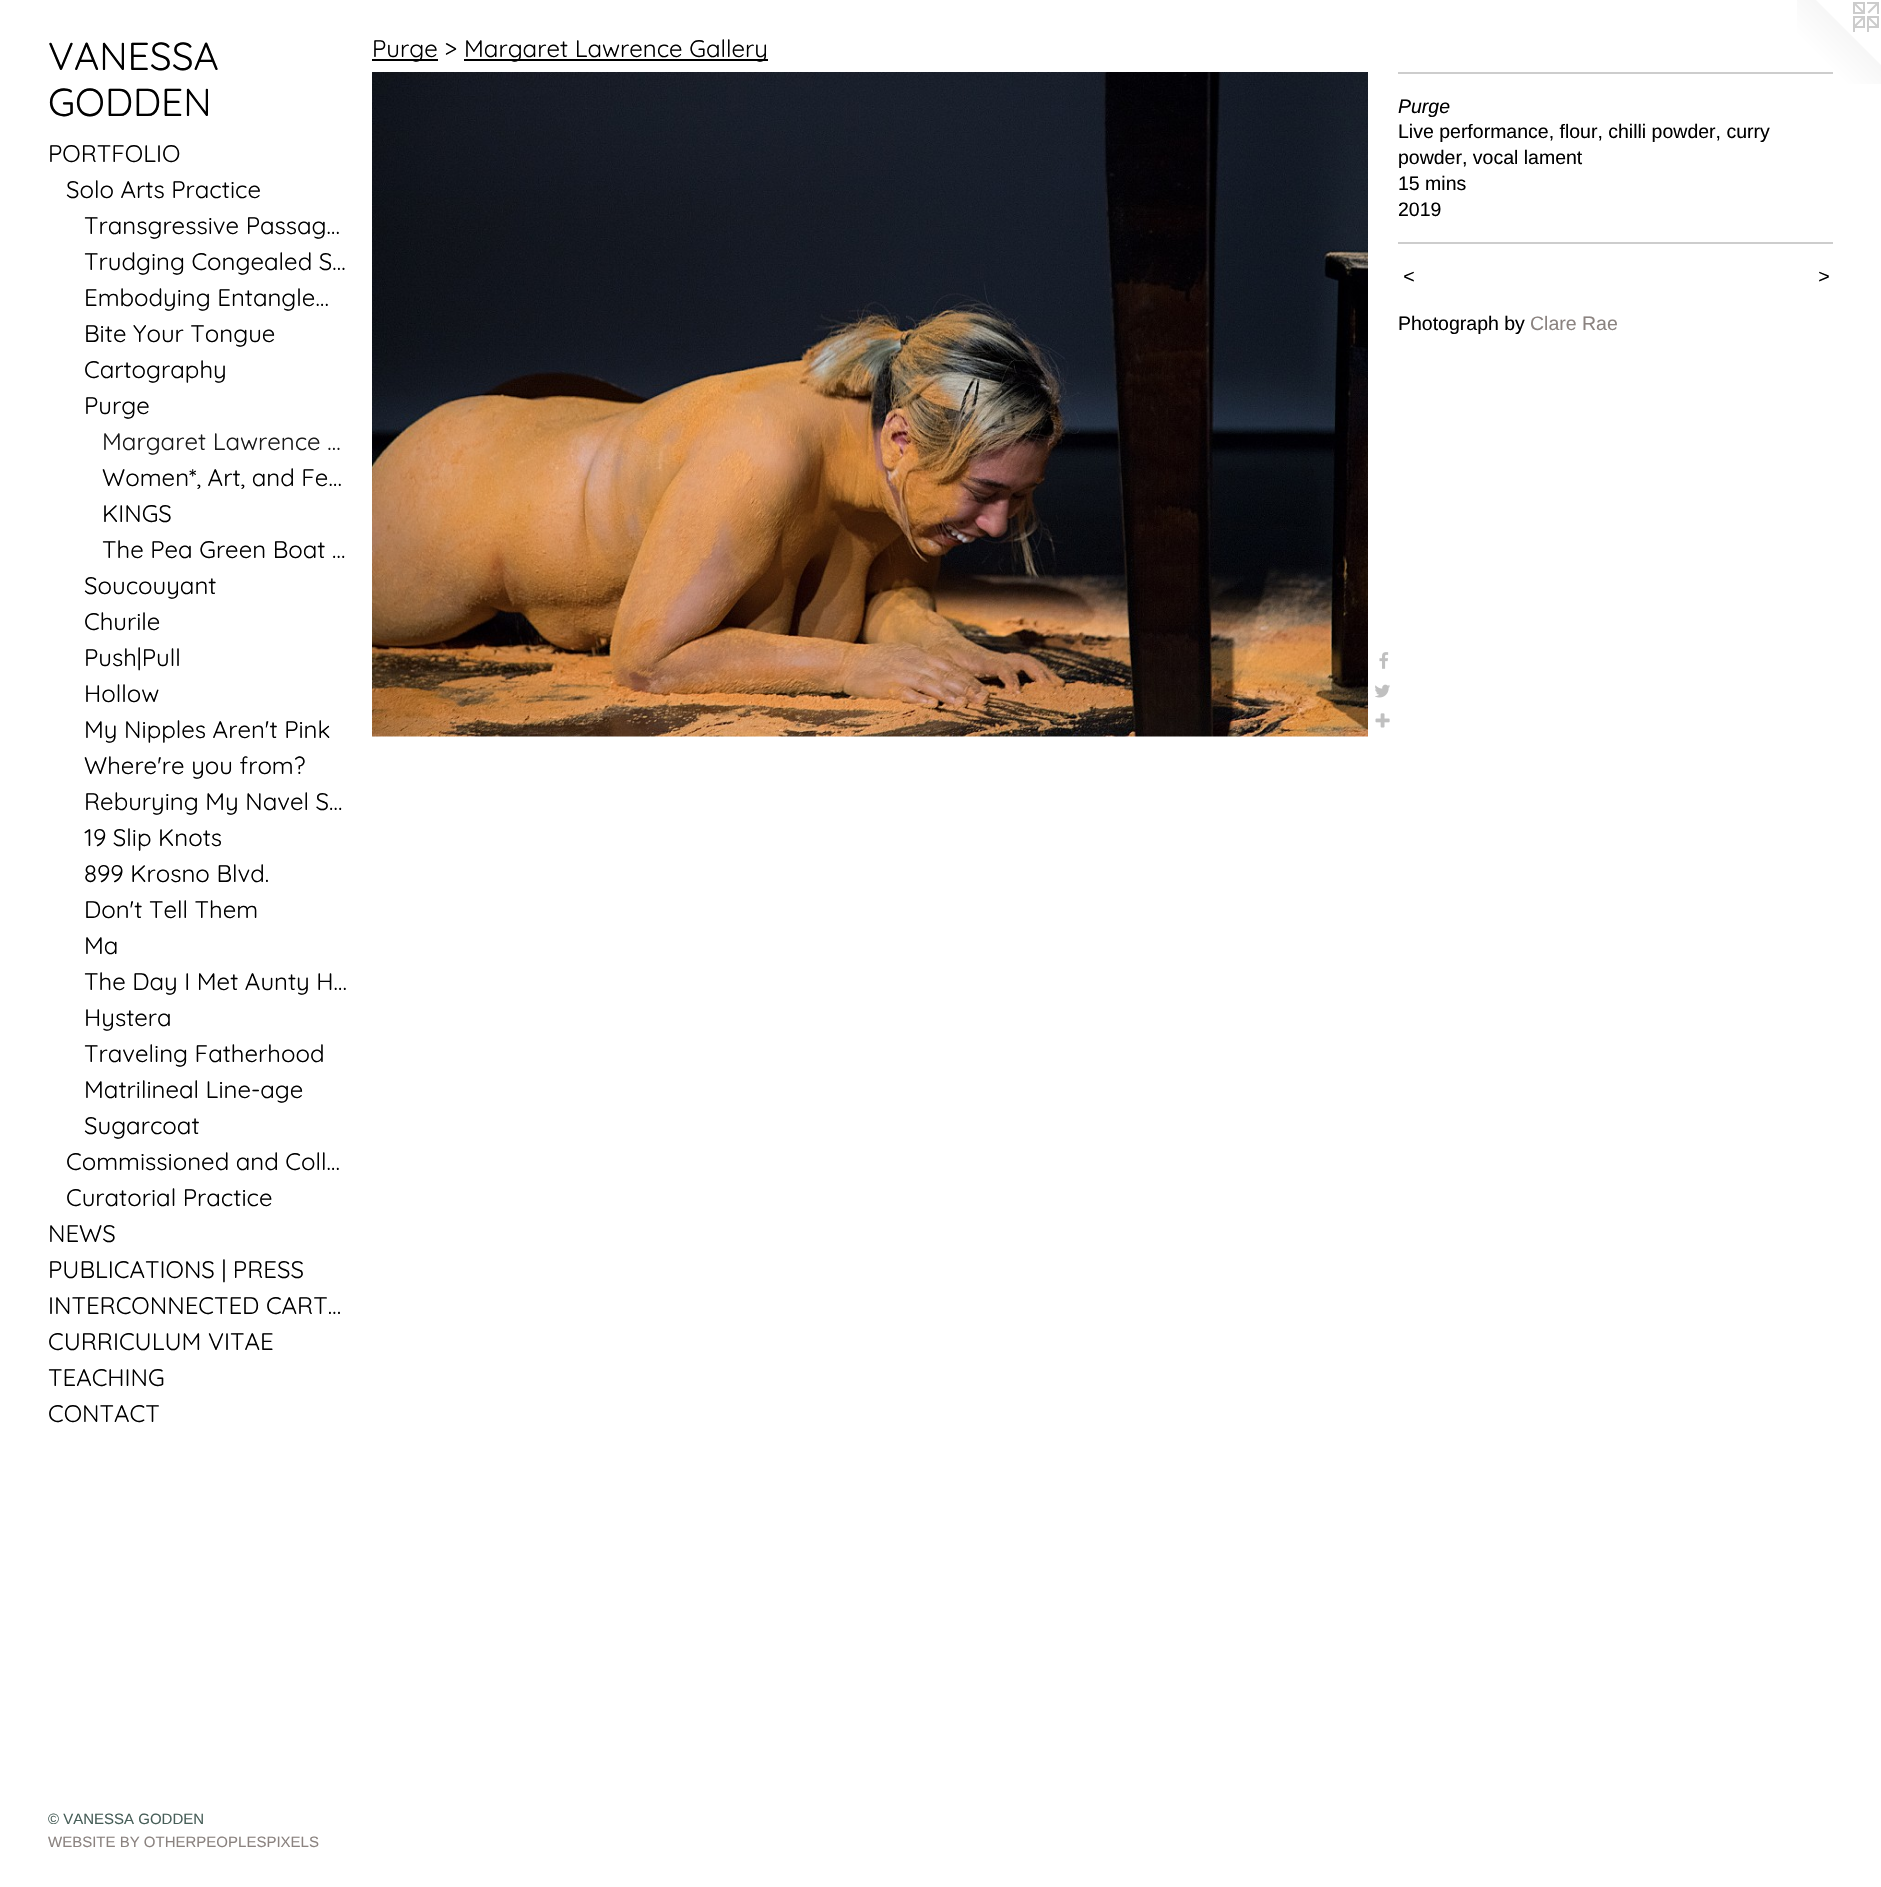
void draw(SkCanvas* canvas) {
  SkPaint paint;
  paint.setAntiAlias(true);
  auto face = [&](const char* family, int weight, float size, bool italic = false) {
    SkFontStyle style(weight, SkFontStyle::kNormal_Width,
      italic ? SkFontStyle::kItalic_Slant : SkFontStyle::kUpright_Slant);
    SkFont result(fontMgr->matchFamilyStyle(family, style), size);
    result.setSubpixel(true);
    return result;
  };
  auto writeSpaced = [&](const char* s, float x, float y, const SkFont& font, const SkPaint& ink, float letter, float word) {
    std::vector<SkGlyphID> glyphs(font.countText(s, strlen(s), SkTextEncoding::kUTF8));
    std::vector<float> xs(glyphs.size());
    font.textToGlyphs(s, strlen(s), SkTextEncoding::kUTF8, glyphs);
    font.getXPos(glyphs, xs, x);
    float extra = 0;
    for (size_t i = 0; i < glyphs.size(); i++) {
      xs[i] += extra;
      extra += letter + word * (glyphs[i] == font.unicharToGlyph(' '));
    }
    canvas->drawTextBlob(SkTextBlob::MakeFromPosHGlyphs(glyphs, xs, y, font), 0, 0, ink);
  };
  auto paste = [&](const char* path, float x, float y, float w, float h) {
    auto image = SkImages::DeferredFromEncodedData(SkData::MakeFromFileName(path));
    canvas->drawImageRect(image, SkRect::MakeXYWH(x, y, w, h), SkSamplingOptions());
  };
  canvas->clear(0xffffffff);
  paint.setColor(0xff000000);
  canvas->drawRect(SkRect::MakeXYWH(372, 59, 66, 2), paint);
  canvas->drawRect(SkRect::MakeXYWH(464, 59, 304, 2), paint);
  paste("img/1.png", 372, 72, 996, 665);
  paste("img/2.png", 1379, 652, 10, 17);
  paste("img/3.png", 1375, 684, 15, 14);
  paste("img/4.png", 1375, 713, 15, 15);
  paste("img/5.png", 1797, 0, 84, 84);
  paint.setColor(0xffcdcdcd);
  canvas->drawRect(SkRect::MakeXYWH(1398, 72, 435, 2), paint);
  canvas->drawRect(SkRect::MakeXYWH(1398, 242, 435, 2), paint);
  auto f0 = face("Quicksand", 300, 39);
  paint.setColor(0xff000000);
  canvas->drawString("VANESSA", 48, 70, f0, paint);
  canvas->drawString("GODDEN", 48, 116, f0, paint);
  auto f1 = face("Quicksand", 300, 24);
  {
    const struct { const char* s; float x, y; } items[] = {
      {"PORTFOLIO", 48, 162},
      {"Solo Arts Practice", 66, 198},
      {"Transgressive Passag…", 84, 234},
      {"Trudging Congealed S…", 84, 270},
      {"Embodying Entangle…", 84, 306},
      {"Bite Your Tongue", 84, 342},
      {"Cartography", 84, 378},
      {"Purge", 84, 414},
    };
    for (auto [s, x, y] : items) {
      canvas->drawString(s, x, y, f1, paint);
    }
  }
  paint.setColor(0xff1a1a1a);
  canvas->drawString("Margaret Lawrence …", 102, 450, f1, paint);
  paint.setColor(0xff000000);
  {
    const struct { const char* s; float x, y; } items[] = {
      {"Women*, Art, and Fe…", 102, 486},
      {"KINGS", 102, 522},
      {"The Pea Green Boat …", 102, 558},
      {"Soucouyant", 84, 594},
      {"Churile", 84, 630},
      {"Push|Pull", 84, 666},
      {"Hollow", 84, 702},
      {"My Nipples Aren't Pink", 84, 738},
      {"Where're you from?", 84, 774},
      {"Reburying My Navel S…", 84, 810},
      {"19 Slip Knots", 84, 846},
      {"899 Krosno Blvd.", 84, 882},
      {"Don't Tell Them", 84, 918},
      {"Ma", 84, 954},
      {"The Day I Met Aunty H…", 84, 990},
      {"Hystera", 84, 1026},
      {"Traveling Fatherhood", 84, 1062},
      {"Matrilineal Line-age", 84, 1098},
      {"Sugarcoat", 84, 1134},
      {"Commissioned and Coll…", 66, 1170},
      {"Curatorial Practice", 66, 1206},
      {"NEWS", 48, 1242},
      {"PUBLICATIONS | PRESS", 48, 1278},
      {"INTERCONNECTED CART…", 48, 1314},
      {"CURRICULUM VITAE", 48, 1350},
      {"TEACHING", 48, 1386},
      {"CONTACT", 48, 1422},
    };
    for (auto [s, x, y] : items) {
      canvas->drawString(s, x, y, f1, paint);
    }
  }
  auto f2 = face("Liberation Sans", 400, 15);
  paint.setColor(0xff485f59);
  canvas->drawString("© VANESSA GODDEN", 48, 1824, f2, paint);
  paint.setColor(0xff8b8380);
  canvas->drawString("WEBSITE BY OTHERPEOPLESPIXELS", 48, 1847, f2, paint);
  paint.setColor(0xff000000);
  canvas->drawString("Purge >", 372, 57, f1, paint);
  canvas->drawString("Margaret Lawrence Gallery", 464, 57, f1, paint);
  auto f3 = face("Liberation Sans", 400, 19.5f, true);
  canvas->drawString("Purge", 1398, 113, f3, paint);
  auto f4 = face("Liberation Sans", 400, 19.5f);
  {
    const struct { const char* s; float x, y; } items[] = {
      {"Live performance, flour, chilli powder, curry", 1398, 138},
      {"powder, vocal lament", 1398, 164},
      {"15 mins", 1398, 190},
      {"2019", 1398, 216},
    };
    for (auto [s, x, y] : items) {
      canvas->drawString(s, x, y, f4, paint);
    }
  }
  writeSpaced("<", 1403, 283, f3, paint, 2, 0);
  writeSpaced(">", 1818, 283, f3, paint, 2, 0);
  canvas->drawString("Photograph by", 1398, 330, f4, paint);
  paint.setColor(0xff8b8380);
  canvas->drawString("Clare Rae", 1530, 330, f4, paint);
}
